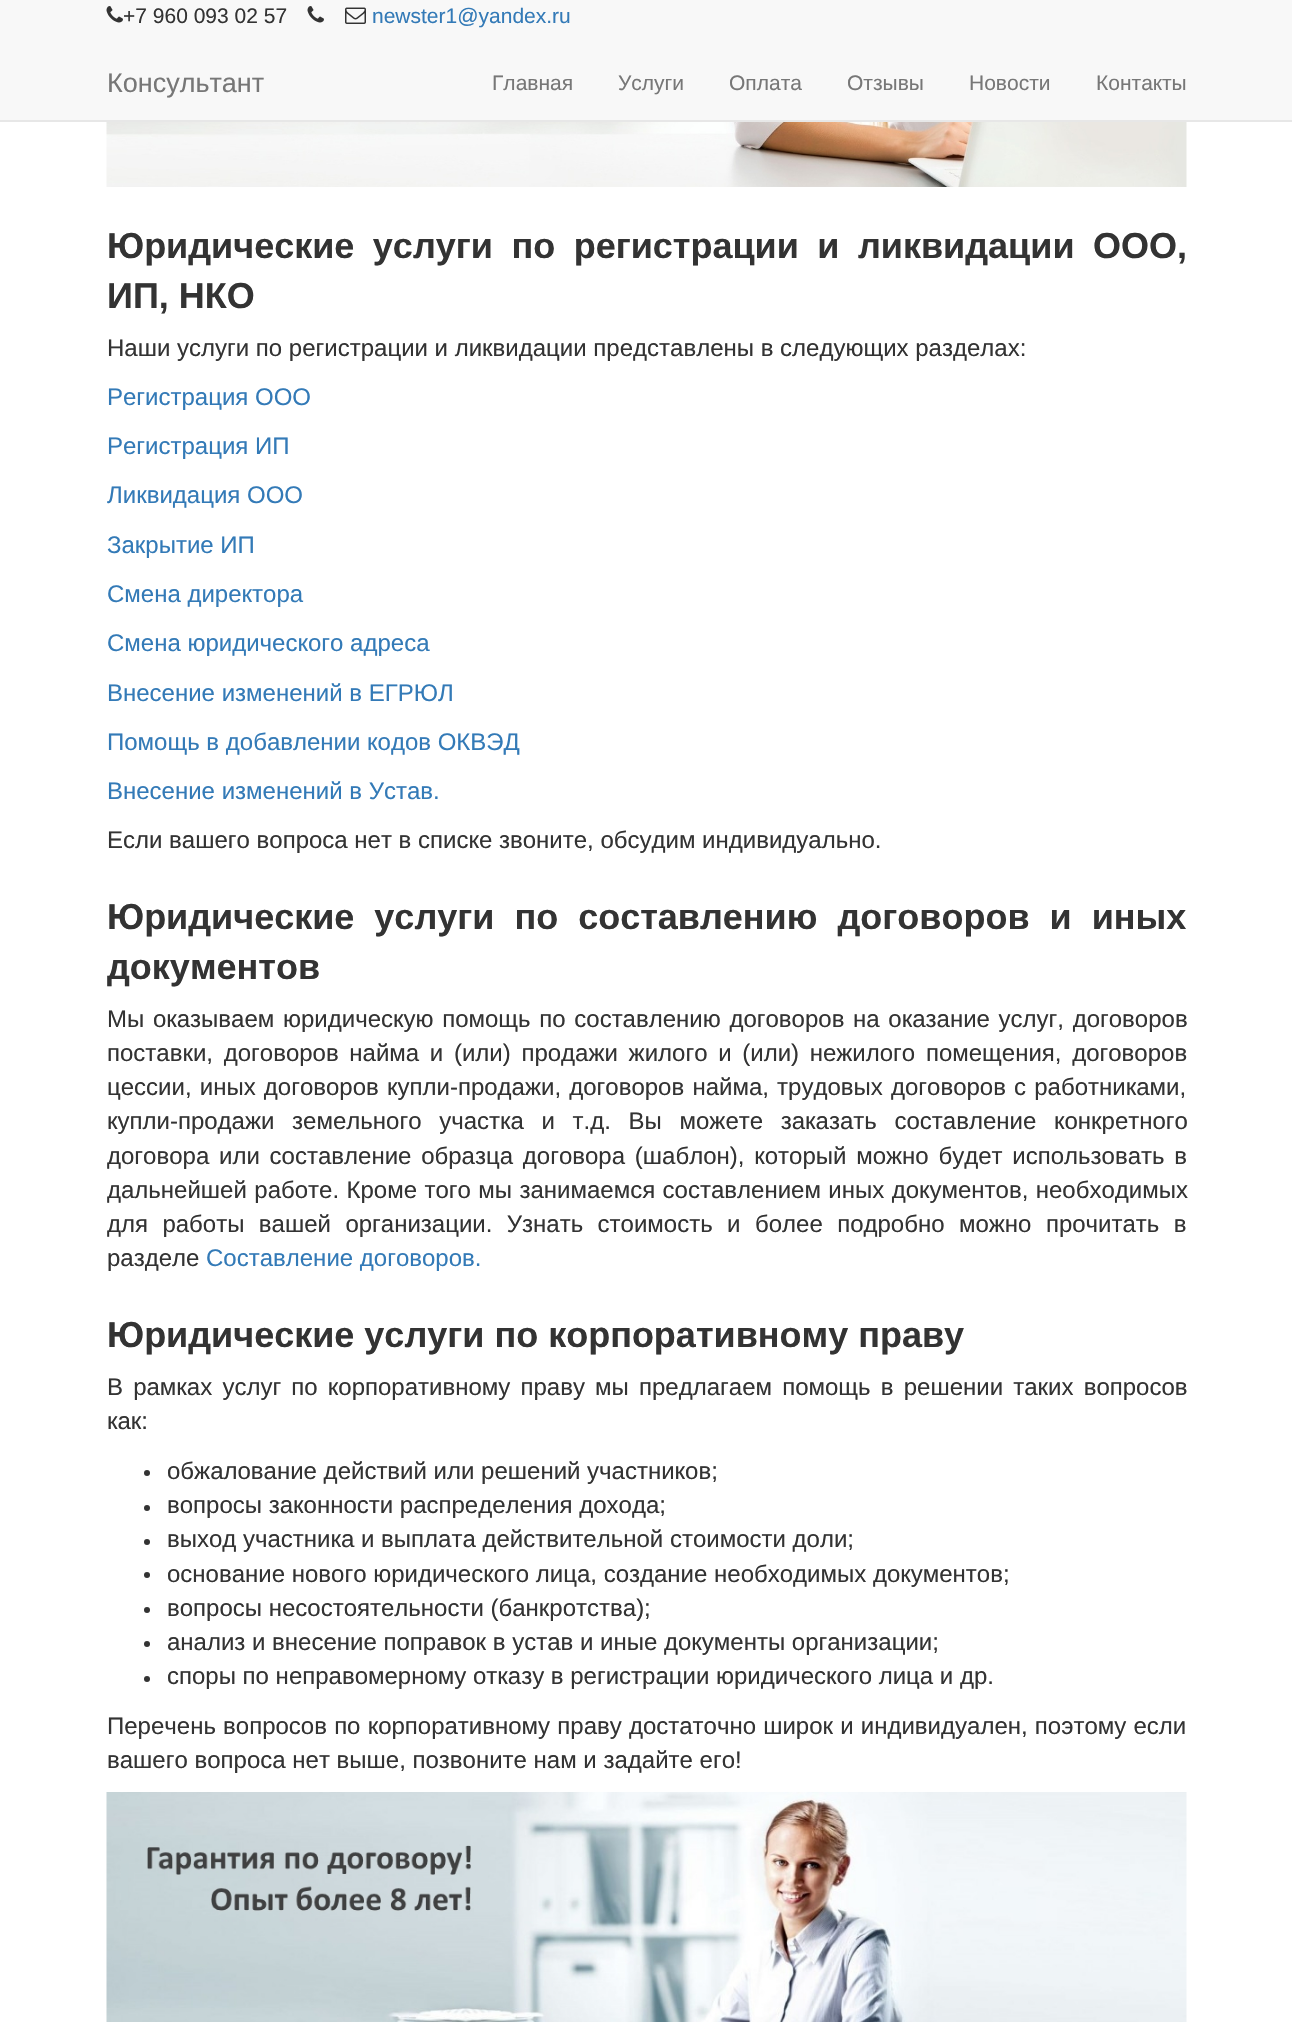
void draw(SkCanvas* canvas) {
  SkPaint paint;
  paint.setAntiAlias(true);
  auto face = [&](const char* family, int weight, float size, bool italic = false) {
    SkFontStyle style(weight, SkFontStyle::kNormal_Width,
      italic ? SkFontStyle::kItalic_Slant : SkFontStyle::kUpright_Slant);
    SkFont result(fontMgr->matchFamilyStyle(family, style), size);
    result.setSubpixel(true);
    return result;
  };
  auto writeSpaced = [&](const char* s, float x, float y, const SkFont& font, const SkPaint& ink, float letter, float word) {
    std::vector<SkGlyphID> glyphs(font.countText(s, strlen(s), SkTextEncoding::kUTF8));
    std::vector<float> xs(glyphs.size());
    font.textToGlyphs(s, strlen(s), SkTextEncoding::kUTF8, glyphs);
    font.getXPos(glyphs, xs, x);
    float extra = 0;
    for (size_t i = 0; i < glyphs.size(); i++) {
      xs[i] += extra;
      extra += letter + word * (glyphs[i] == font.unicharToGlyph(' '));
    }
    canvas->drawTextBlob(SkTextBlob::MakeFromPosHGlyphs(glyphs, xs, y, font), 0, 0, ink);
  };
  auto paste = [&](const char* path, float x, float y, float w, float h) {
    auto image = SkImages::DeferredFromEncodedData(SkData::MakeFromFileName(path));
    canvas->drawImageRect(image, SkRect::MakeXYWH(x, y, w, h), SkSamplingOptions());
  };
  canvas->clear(0xffffffff);
  paint.setColor(0xfff8f8f8);
  canvas->drawRect(SkRect::MakeXYWH(0, 0, 1292, 120), paint);
  paint.setColor(0xffe7e7e7);
  canvas->drawRect(SkRect::MakeXYWH(0, 120, 1292, 2), paint);
  paste("img/1.png", 106, 6, 17, 17);
  paste("img/1.png", 307, 6, 17, 17);
  paste("img/2.png", 345, 7, 21, 17);
  paste("img/3.png", 106, 122, 1081, 65);
  paint.setColor(0xff333333);
  canvas->drawCircle(147, 1473, 3, paint);
  canvas->drawCircle(147, 1508, 3, paint);
  canvas->drawCircle(147, 1542, 3, paint);
  canvas->drawCircle(147, 1575, 3, paint);
  canvas->drawCircle(147, 1610, 3, paint);
  canvas->drawCircle(147, 1644, 3, paint);
  canvas->drawCircle(147, 1679, 3, paint);
  paste("img/4.png", 106, 1792, 1081, 230);
  auto f0 = face("Liberation Sans", 400, 21);
  canvas->drawString("+7 960 093 02 57", 123, 23, f0, paint);
  paint.setColor(0xff337ab7);
  canvas->drawString("newster1@yandex.ru", 372, 23, f0, paint);
  auto f1 = face("Liberation Sans", 400, 27);
  paint.setColor(0xff777777);
  canvas->drawString("Консультант", 107, 92, f1, paint);
  {
    const struct { const char* s; float x, y; } items[] = {
      {"Главная", 492, 90},
      {"Услуги", 618, 90},
      {"Оплата", 729, 90},
      {"Отзывы", 847, 90},
      {"Новости", 969, 90},
      {"Контакты", 1096, 90},
    };
    for (auto [s, x, y] : items) {
      canvas->drawString(s, x, y, f0, paint);
    }
  }
  auto f2 = face("Liberation Sans", 700, 36);
  paint.setColor(0xff333333);
  writeSpaced("Юридические услуги по регистрации и ликвидации ООО,", 107, 258, f2, paint, 0, 8.5f);
  canvas->drawString("ИП, НКО", 107, 308, f2, paint);
  auto f3 = face("Liberation Sans", 400, 24);
  canvas->drawString("Наши услуги по регистрации и ликвидации представлены в следующих разделах:", 107, 356, f3, paint);
  paint.setColor(0xff337ab7);
  {
    const struct { const char* s; float x, y; } items[] = {
      {"Регистрация ООО", 107, 405},
      {"Регистрация ИП", 107, 454},
      {"Ликвидация ООО", 107, 503},
      {"Закрытие ИП", 107, 553},
      {"Смена директора", 107, 602},
      {"Смена юридического адреса", 107, 651},
      {"Внесение изменений в ЕГРЮЛ", 107, 701},
      {"Помощь в добавлении кодов ОКВЭД", 107, 750},
      {"Внесение изменений в Устав.", 107, 799},
    };
    for (auto [s, x, y] : items) {
      canvas->drawString(s, x, y, f3, paint);
    }
  }
  paint.setColor(0xff333333);
  canvas->drawString("Если вашего вопроса нет в списке звоните, обсудим индивидуально.", 107, 848, f3, paint);
  writeSpaced("Юридические услуги по составлению договоров и иных", 107, 929, f2, paint, 0, 10);
  canvas->drawString("документов", 107, 979, f2, paint);
  writeSpaced("Мы оказываем юридическую помощь по составлению договоров на оказание услуг, договоров", 107, 1027, f3, paint, 0, 2);
  writeSpaced("поставки, договоров найма и (или) продажи жилого и (или) нежилого помещения, договоров", 107, 1061, f3, paint, 0, 4);
  writeSpaced("цессии, иных договоров купли-продажи, договоров найма, трудовых договоров с работниками,", 107, 1095, f3, paint, 0, 1.5f);
  writeSpaced("купли-продажи земельного участка и т.д. Вы можете заказать составление конкретного", 107, 1129, f3, paint, 0, 11);
  writeSpaced("договора или составление образца договора (шаблон), который можно будет использовать в", 107, 1164, f3, paint, 0, 3.1f);
  writeSpaced("дальнейшей работе. Кроме того мы занимаемся составлением иных документов, необходимых", 107, 1198, f3, paint, 0, 0.75f);
  writeSpaced("для работы вашей организации. Узнать стоимость и более подробно можно прочитать в", 107, 1232, f3, paint, 0, 7.75f);
  canvas->drawString("разделе", 107, 1266, f3, paint);
  paint.setColor(0xff337ab7);
  canvas->drawString("Составление договоров.", 206, 1266, f3, paint);
  paint.setColor(0xff333333);
  canvas->drawString("Юридические услуги по корпоративному праву", 107, 1347, f2, paint);
  writeSpaced("В рамках услуг по корпоративному праву мы предлагаем помощь в решении таких вопросов", 107, 1395, f3, paint, 0, 3.5f);
  {
    const struct { const char* s; float x, y; } items[] = {
      {"как:", 107, 1429},
      {"обжалование действий или решений участников;", 167, 1479},
      {"вопросы законности распределения дохода;", 167, 1513},
      {"выход участника и выплата действительной стоимости доли;", 167, 1547},
      {"основание нового юридического лица, создание необходимых документов;", 167, 1582},
      {"вопросы несостоятельности (банкротства);", 167, 1616},
      {"анализ и внесение поправок в устав и иные документы организации;", 167, 1650},
      {"споры по неправомерному отказу в регистрации юридического лица и др.", 167, 1684},
    };
    for (auto [s, x, y] : items) {
      canvas->drawString(s, x, y, f3, paint);
    }
  }
  writeSpaced("Перечень вопросов по корпоративному праву достаточно широк и индивидуален, поэтому если", 107, 1734, f3, paint, 0, 0.5f);
  canvas->drawString("вашего вопроса нет выше, позвоните нам и задайте его!", 107, 1768, f3, paint);
}
